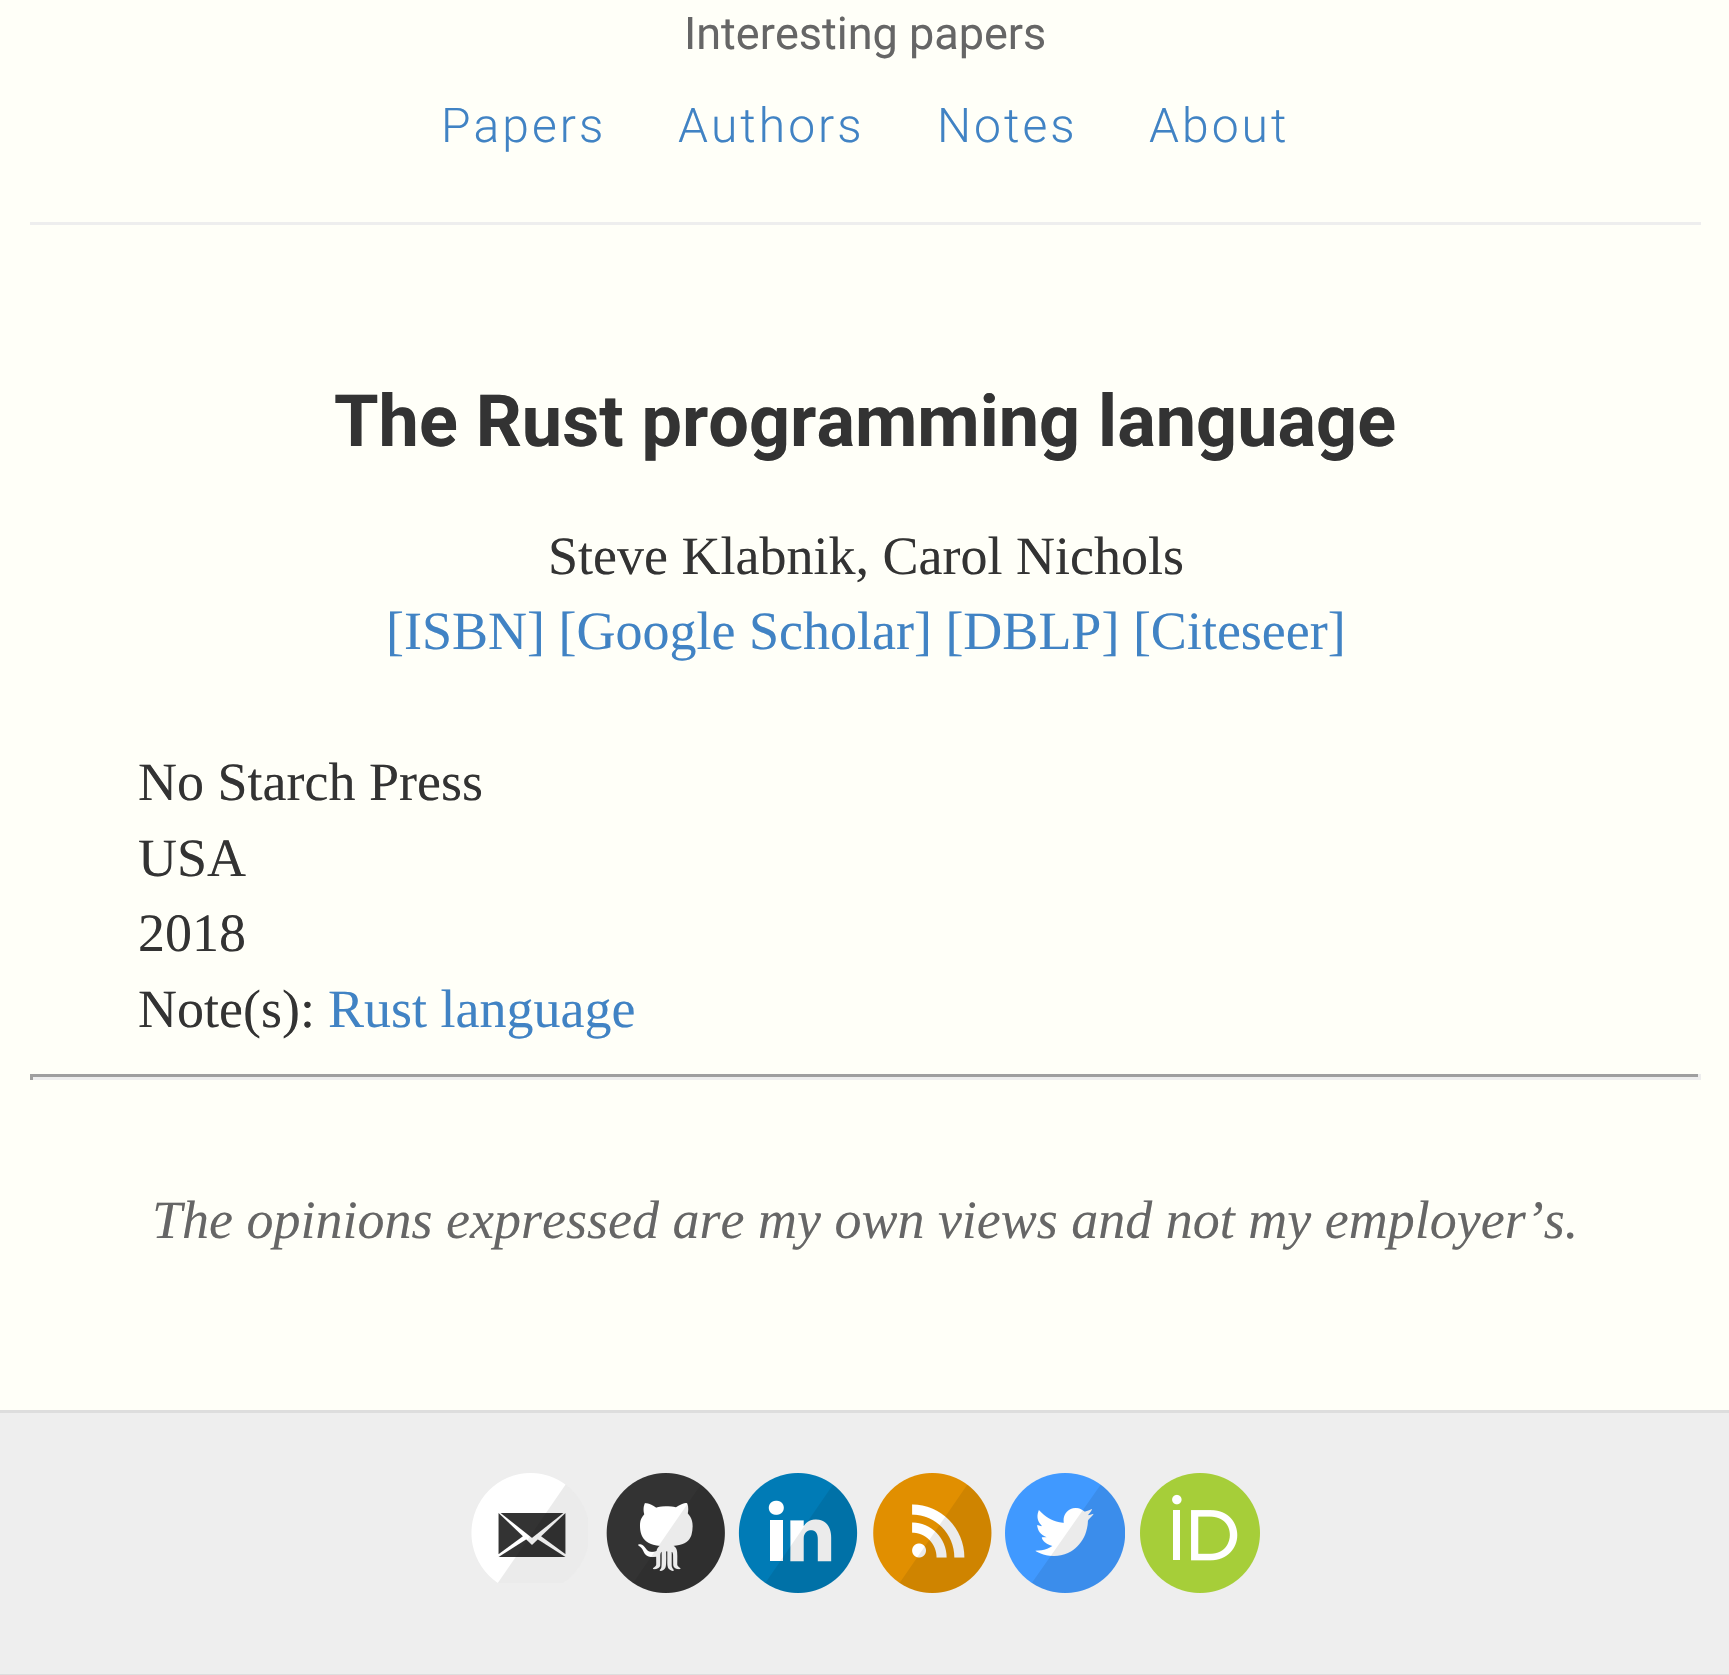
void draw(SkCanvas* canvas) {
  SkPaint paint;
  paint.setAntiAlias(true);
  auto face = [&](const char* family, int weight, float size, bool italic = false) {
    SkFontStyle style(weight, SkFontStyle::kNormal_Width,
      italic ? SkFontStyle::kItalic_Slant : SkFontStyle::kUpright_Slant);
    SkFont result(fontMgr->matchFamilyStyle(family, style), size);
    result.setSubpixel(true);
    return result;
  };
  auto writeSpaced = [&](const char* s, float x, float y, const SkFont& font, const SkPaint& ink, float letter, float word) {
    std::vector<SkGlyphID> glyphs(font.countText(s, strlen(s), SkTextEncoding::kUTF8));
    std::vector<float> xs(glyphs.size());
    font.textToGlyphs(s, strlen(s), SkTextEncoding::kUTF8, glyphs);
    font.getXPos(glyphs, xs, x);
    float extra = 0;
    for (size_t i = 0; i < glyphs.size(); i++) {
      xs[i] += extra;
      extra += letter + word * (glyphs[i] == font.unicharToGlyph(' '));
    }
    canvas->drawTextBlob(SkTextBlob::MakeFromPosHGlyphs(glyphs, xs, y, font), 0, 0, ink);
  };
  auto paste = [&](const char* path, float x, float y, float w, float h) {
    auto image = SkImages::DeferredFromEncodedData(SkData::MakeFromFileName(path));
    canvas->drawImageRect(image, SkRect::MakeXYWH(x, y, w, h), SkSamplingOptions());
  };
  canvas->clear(0xfffffff8);
  {
    const struct { float x, y, w, h; SkColor color; } items[] = {
      {30, 222, 1671, 3, 0xffeeeeee},
      {30, 1074, 1671, 3, 0xff9f9f9f},
      {1698, 1074, 3, 6, 0xffeeeeee},
      {30, 1077, 1671, 3, 0xffeeeeee},
      {30, 1074, 3, 6, 0xff9f9f9f},
      {0, 1413, 1729, 261, 0xffeeeeee},
      {0, 1410, 1729, 3, 0xffdddddd},
      {0, 1674, 1729, 1, 0xffdddddd},
    };
    for (auto [x, y, w, h, color] : items) {
      paint.setColor(color);
      canvas->drawRect(SkRect::MakeXYWH(x, y, w, h), paint);
    }
  }
  paste("img/1.png", 471, 1473, 117, 110);
  paste("img/2.png", 606, 1473, 119, 120);
  paste("img/3.png", 738, 1473, 120, 120);
  paste("img/4.png", 873, 1473, 119, 120);
  paste("img/5.png", 1005, 1473, 120, 120);
  paste("img/6.png", 1140, 1473, 120, 120);
  auto f0 = face("Roboto", 400, 45);
  paint.setColor(0xff666666);
  canvas->drawString("Interesting papers", 684, 49, f0, paint);
  auto f1 = face("Roboto", 300, 48);
  paint.setColor(0xff4183c4);
  {
    const struct { const char* s; float x, y; } items[] = {
      {"Papers", 441, 142},
      {"Authors", 678, 142},
      {"Notes", 937, 142},
      {"About", 1149, 142},
    };
    for (auto [s, x, y] : items) {
      writeSpaced(s, x, y, f1, paint, 3, 0);
    }
  }
  auto f2 = face("Roboto", 700, 72);
  paint.setColor(0xff333333);
  canvas->drawString("The Rust programming language", 334, 446, f2, paint);
  auto f3 = face("Liberation Serif", 400, 54);
  canvas->drawString("Steve Klabnik, Carol Nichols", 548, 574, f3, paint);
  paint.setColor(0xff4183c4);
  canvas->drawString("[ISBN] [Google Scholar] [DBLP] [Citeseer]", 386, 649, f3, paint);
  paint.setColor(0xff333333);
  {
    const struct { const char* s; float x, y; } items[] = {
      {"No Starch Press", 138, 800},
      {"USA", 138, 876},
      {"2018", 138, 951},
      {"Note(s):", 138, 1027},
    };
    for (auto [s, x, y] : items) {
      canvas->drawString(s, x, y, f3, paint);
    }
  }
  paint.setColor(0xff4183c4);
  canvas->drawString("Rust language", 328, 1027, f3, paint);
  auto f4 = face("Liberation Serif", 400, 54, true);
  paint.setColor(0xff666666);
  canvas->drawString("The opinions expressed are my own views and not my employer’s.", 152, 1238, f4, paint);
}
